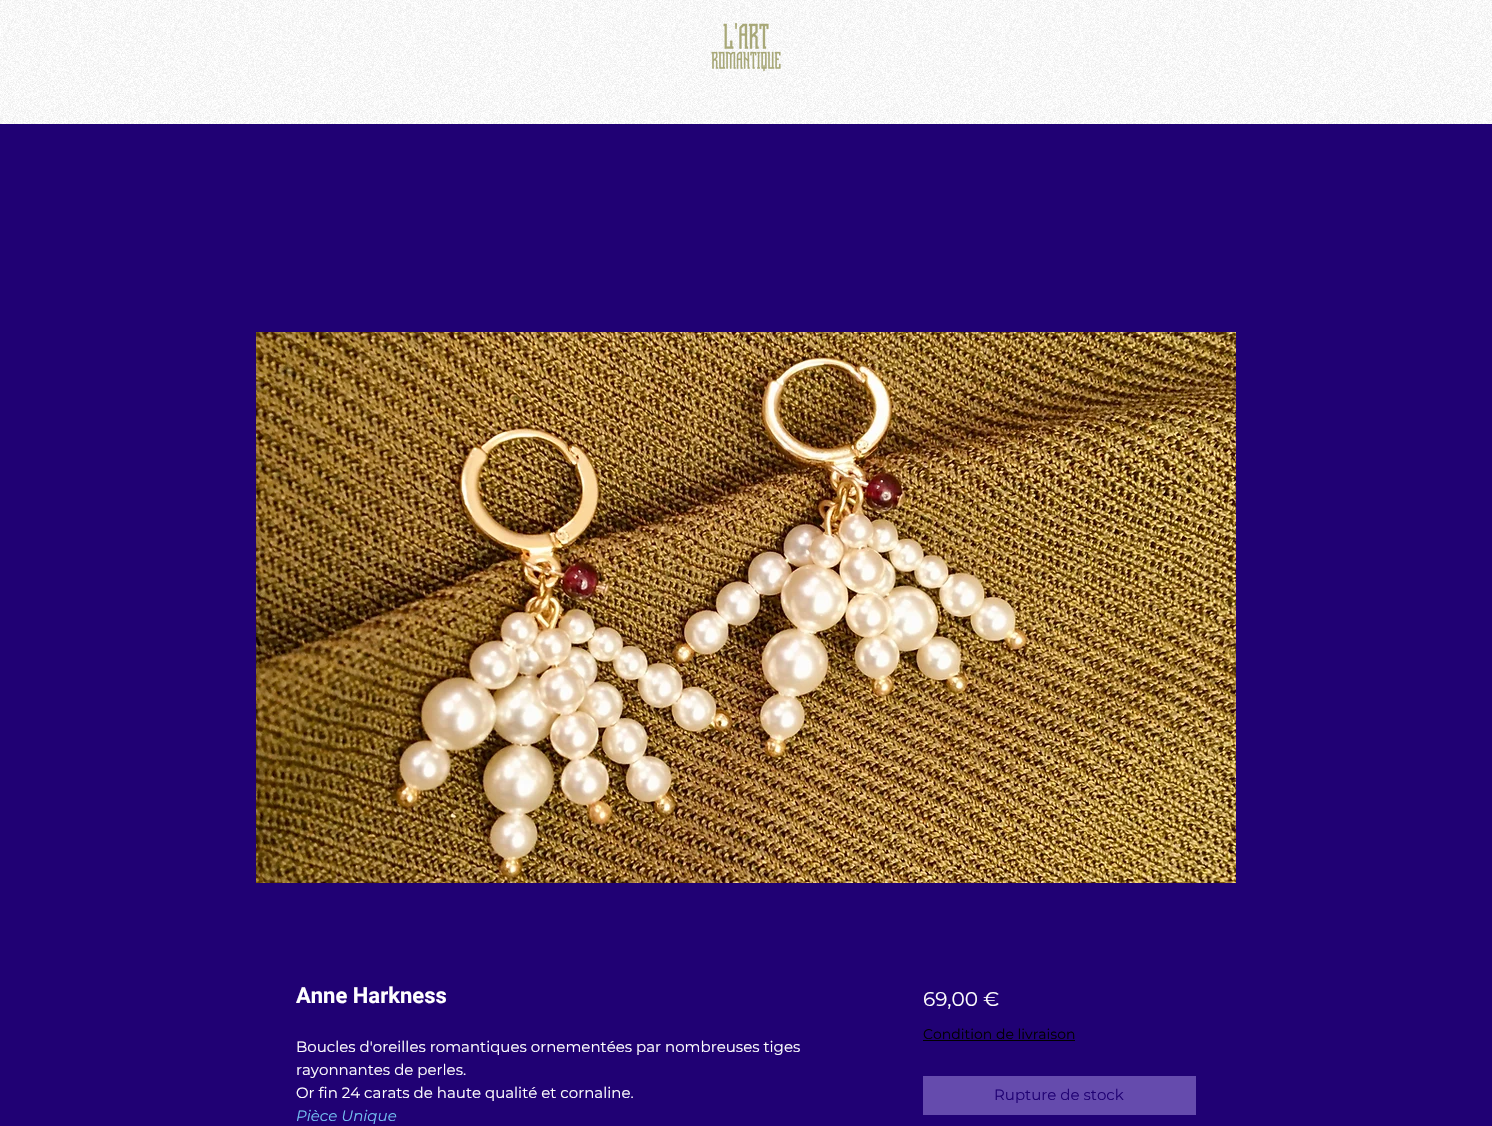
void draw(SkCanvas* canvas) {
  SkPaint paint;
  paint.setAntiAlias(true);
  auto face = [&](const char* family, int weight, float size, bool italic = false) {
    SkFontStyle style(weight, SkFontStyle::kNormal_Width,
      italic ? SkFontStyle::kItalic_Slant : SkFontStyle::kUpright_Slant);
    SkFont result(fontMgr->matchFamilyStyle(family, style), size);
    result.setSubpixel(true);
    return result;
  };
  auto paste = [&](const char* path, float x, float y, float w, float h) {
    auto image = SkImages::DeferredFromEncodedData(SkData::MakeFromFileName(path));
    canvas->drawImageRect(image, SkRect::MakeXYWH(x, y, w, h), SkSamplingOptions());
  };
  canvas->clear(0xff200174);
  paint.setColor(0xffffffff);
  canvas->drawRect(SkRect::MakeXYWH(0, 0, 1492, 124), paint);
  paste("img/1.png", 0, 0, 1492, 124);
  paste("img/2.png", 711, 22, 70, 50);
  paste("img/3.png", 256, 332, 980, 551);
  paint.setColor(0xff000000);
  canvas->drawRect(SkRect::MakeXYWH(923, 1040, 152, 1), paint);
  paint.setColor(0xff654bad);
  canvas->drawRect(SkRect::MakeXYWH(923, 1076, 273, 39), paint);
  auto f0 = face("Roboto", 700, 22);
  paint.setColor(0xffffffff);
  canvas->drawString("Anne Harkness", 296, 1003, f0, paint);
  auto f1 = face("Montserrat", 400, 15);
  {
    const struct { const char* s; float x, y; } items[] = {
      {"Boucles d'oreilles romantiques ornementées par nombreuses tiges", 296, 1052},
      {"rayonnantes de perles.", 296, 1075},
      {"Or fin 24 carats de haute qualité et cornaline.", 296, 1098},
    };
    for (auto [s, x, y] : items) {
      canvas->drawString(s, x, y, f1, paint);
    }
  }
  auto f2 = face("Montserrat", 400, 15, true);
  paint.setColor(0xff73bff1);
  canvas->drawString("Pièce Unique", 296, 1121, f2, paint);
  auto f3 = face("Montserrat", 400, 20);
  paint.setColor(0xffffffff);
  canvas->drawString("69,00 €", 923, 1006, f3, paint);
  auto f4 = face("Montserrat", 400, 14);
  paint.setColor(0xff000000);
  canvas->drawString("Condition de livraison", 923, 1039, f4, paint);
  paint.setColor(0xff200174);
  canvas->drawString("Rupture de stock", 994, 1100, f1, paint);
}
